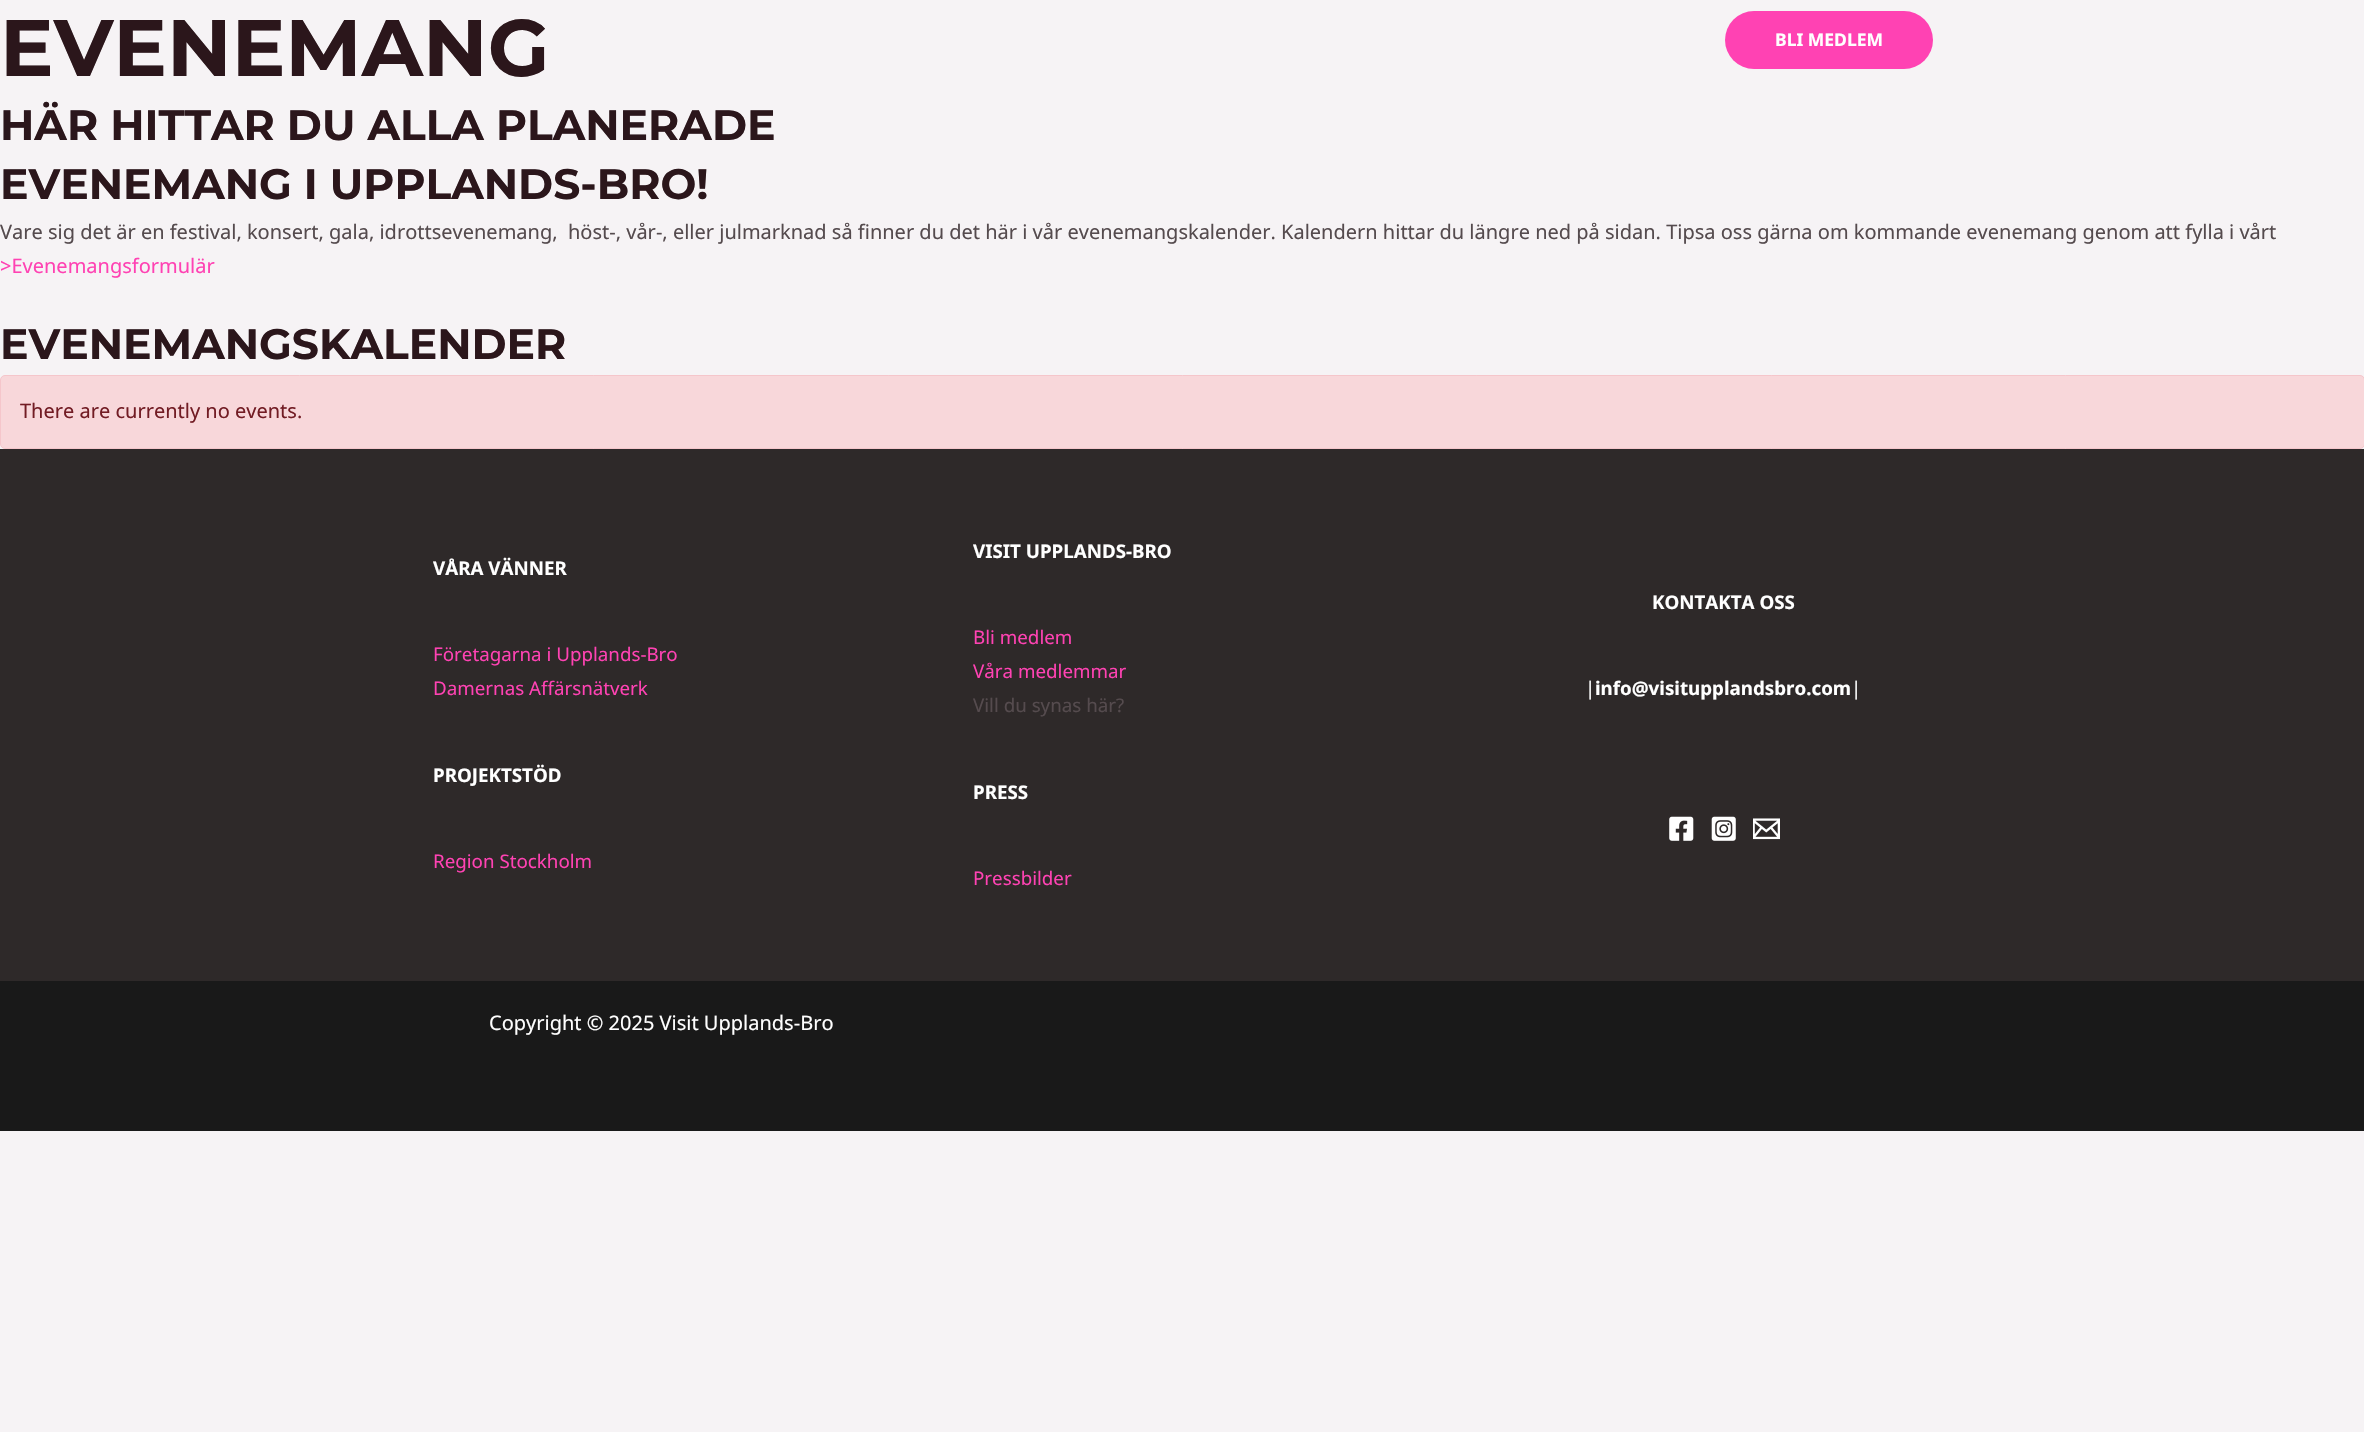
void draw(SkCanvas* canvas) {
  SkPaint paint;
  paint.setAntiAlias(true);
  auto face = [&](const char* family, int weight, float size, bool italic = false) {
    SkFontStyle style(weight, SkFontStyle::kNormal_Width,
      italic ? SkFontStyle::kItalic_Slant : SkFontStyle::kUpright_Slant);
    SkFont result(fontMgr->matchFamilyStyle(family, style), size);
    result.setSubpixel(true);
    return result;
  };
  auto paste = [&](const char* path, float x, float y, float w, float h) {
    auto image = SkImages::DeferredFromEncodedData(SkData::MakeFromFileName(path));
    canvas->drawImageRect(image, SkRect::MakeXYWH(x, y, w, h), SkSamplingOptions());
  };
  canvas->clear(0xfff6f3f5);
  paint.setColor(0xfff8d7da);
  canvas->drawRoundRect(SkRect::MakeXYWH(0.5f, 375.5f, 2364, 73), 4.5f, 4.5f, paint);
  paint.setStroke(true);
  paint.setStrokeWidth(1);
  paint.setColor(0xfff5c6cb);
  canvas->drawRoundRect(SkRect::MakeXYWH(0.5f, 375.5f, 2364, 73), 4.5f, 4.5f, paint);
  paint.setStroke(false);
  paint.setColor(0xffff42b3);
  canvas->drawRoundRect(SkRect::MakeXYWH(1725, 11, 208, 58), 29, 29, paint);
  paint.setColor(0xff2e2929);
  canvas->drawRect(SkRect::MakeXYWH(0, 449, 2364, 532), paint);
  paste("img/1.png", 1669, 816, 25, 25);
  paste("img/2.png", 1711, 816, 25, 25);
  paste("img/3.png", 1753, 818, 27, 22);
  paint.setColor(0xff191919);
  canvas->drawRect(SkRect::MakeXYWH(0, 981, 2364, 150), paint);
  auto f0 = face("Montserrat", 100, 80);
  paint.setColor(0xff2b161b);
  canvas->drawString("EVENEMANG", 0, 76, f0, paint);
  auto f1 = face("Montserrat", 100, 42.5f);
  canvas->drawString("HÄR HITTAR DU ALLA PLANERADE", 0, 140, f1, paint);
  canvas->drawString("EVENEMANG I UPPLANDS-BRO!", 0, 199, f1, paint);
  auto f2 = face("Noto Sans", 400, 20);
  paint.setColor(0xff554b4e);
  canvas->drawString("Vare sig det är en festival, konsert, gala, idrottsevenemang,  höst-, vår-, eller julmarknad så finner du det här i vår evenemangskalender. Kalendern hittar du längre ned på sidan. Tipsa oss gärna om kommande evenemang genom att fylla i vårt", 0, 239, f2, paint);
  paint.setColor(0xffff42b3);
  canvas->drawString(">Evenemangsformulär", 0, 273, f2, paint);
  paint.setColor(0xff2b161b);
  canvas->drawString("EVENEMANGSKALENDER", 0, 359, f1, paint);
  paint.setColor(0xff721c24);
  canvas->drawString("There are currently no events.", 20, 418, f2, paint);
  auto f3 = face("Noto Sans", 700, 17.5f);
  paint.setColor(0xffffffff);
  canvas->drawString("BLI MEDLEM", 1775, 46, f3, paint);
  auto f4 = face("Noto Sans", 700, 18.75f);
  canvas->drawString("VÅRA VÄNNER", 433, 575, f4, paint);
  auto f5 = face("Noto Sans", 400, 18.75f);
  paint.setColor(0xffff42b3);
  canvas->drawString("Företagarna i Upplands-Bro", 433, 661, f5, paint);
  canvas->drawString("Damernas Affärsnätverk", 433, 695, f5, paint);
  paint.setColor(0xffffffff);
  canvas->drawString("PROJEKTSTÖD", 433, 782, f4, paint);
  paint.setColor(0xffff42b3);
  canvas->drawString("Region Stockholm", 433, 868, f5, paint);
  paint.setColor(0xffffffff);
  canvas->drawString("VISIT UPPLANDS-BRO", 973, 558, f4, paint);
  paint.setColor(0xffff42b3);
  canvas->drawString("Bli medlem", 973, 644, f5, paint);
  canvas->drawString("Våra medlemmar", 973, 678, f5, paint);
  paint.setColor(0xff554b4e);
  canvas->drawString("Vill du synas här?", 973, 712, f5, paint);
  paint.setColor(0xffffffff);
  canvas->drawString("PRESS", 973, 799, f4, paint);
  paint.setColor(0xffff42b3);
  canvas->drawString("Pressbilder", 973, 885, f5, paint);
  paint.setColor(0xffffffff);
  canvas->drawString("KONTAKTA OSS", 1652, 609, f4, paint);
  canvas->drawString("|", 1585, 695, f5, paint);
  canvas->drawString("info@visitupplandsbro.com", 1595, 695, f4, paint);
  canvas->drawString("|", 1851, 695, f5, paint);
  canvas->drawString("Copyright © 2025 Visit Upplands-Bro", 489, 1030, f2, paint);
}
